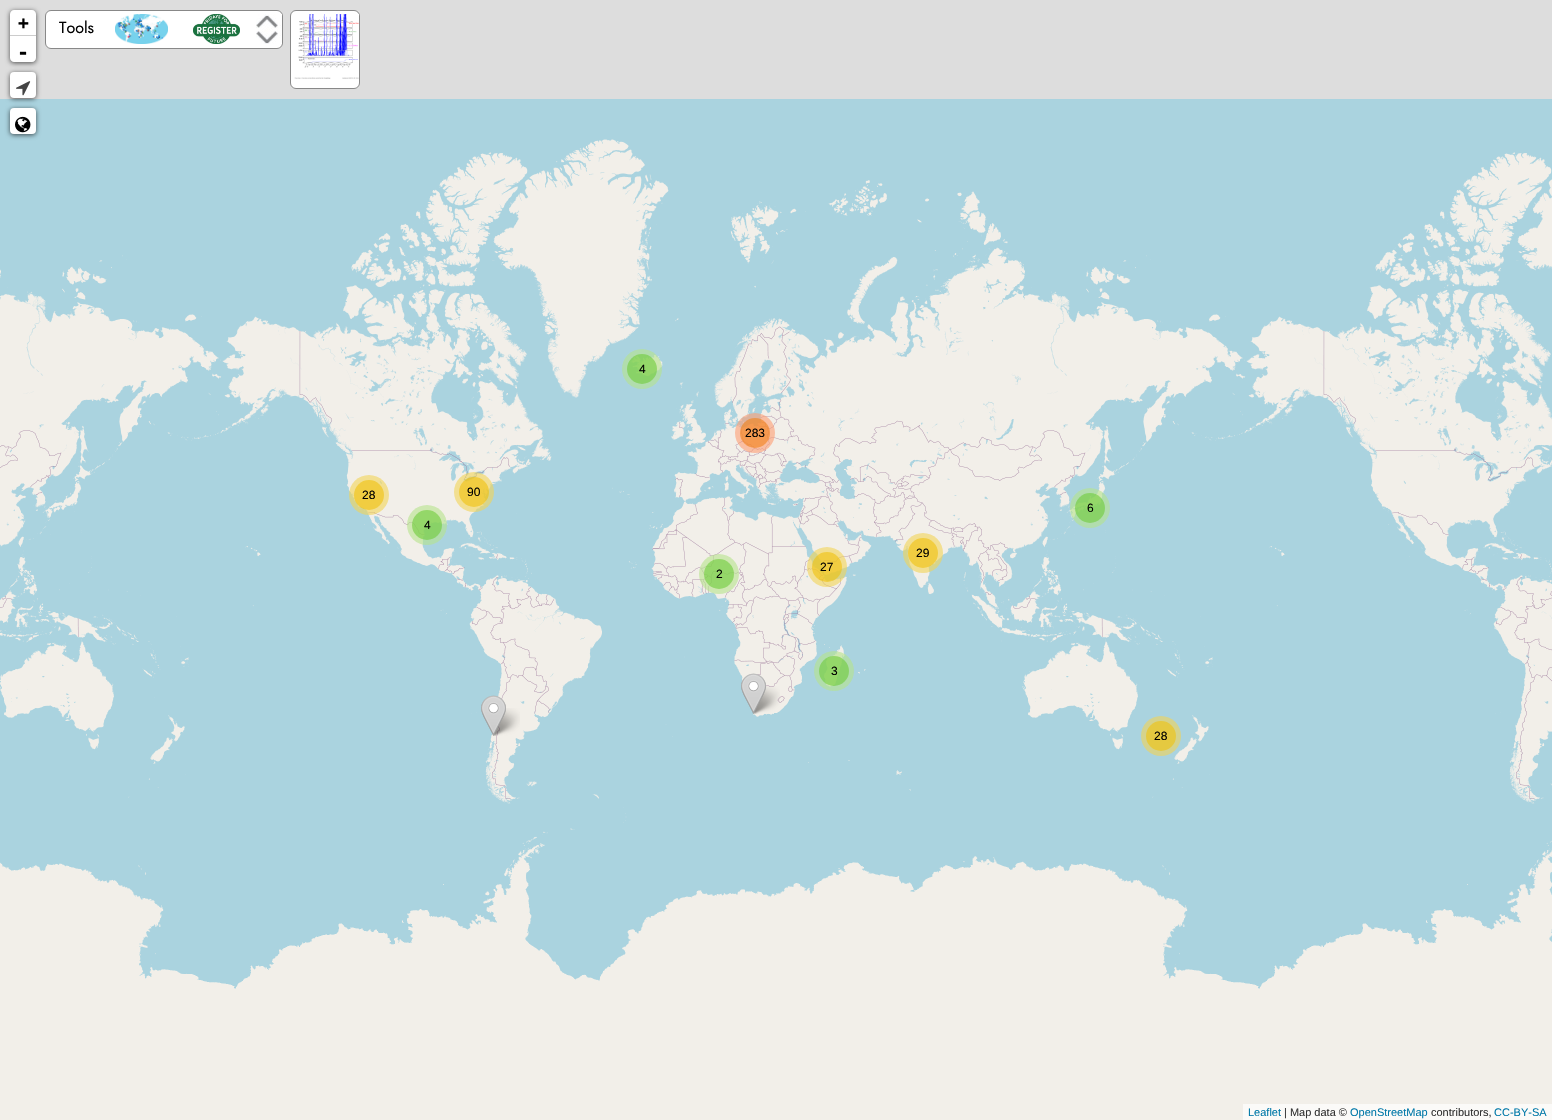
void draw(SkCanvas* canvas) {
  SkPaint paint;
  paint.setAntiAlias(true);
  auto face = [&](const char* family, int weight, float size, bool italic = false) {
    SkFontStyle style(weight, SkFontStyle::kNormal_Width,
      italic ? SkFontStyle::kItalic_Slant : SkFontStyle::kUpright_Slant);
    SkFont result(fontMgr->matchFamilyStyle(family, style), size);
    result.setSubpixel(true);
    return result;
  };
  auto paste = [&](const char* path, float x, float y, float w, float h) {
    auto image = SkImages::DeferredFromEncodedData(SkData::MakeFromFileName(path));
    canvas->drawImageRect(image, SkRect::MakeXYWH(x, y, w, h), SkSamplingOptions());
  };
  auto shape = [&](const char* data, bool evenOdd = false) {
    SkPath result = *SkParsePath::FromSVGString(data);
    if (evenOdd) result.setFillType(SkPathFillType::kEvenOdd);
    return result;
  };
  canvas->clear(0xffdddddd);
  paint.setColor(0xffffffff);
  canvas->drawRoundRect(SkRect::MakeXYWH(290.5f, 10.5f, 69, 78), 5.5f, 5.5f, paint);
  paint.setStroke(true);
  paint.setStrokeWidth(1);
  paint.setColor(0xff888888);
  canvas->drawRoundRect(SkRect::MakeXYWH(290.5f, 10.5f, 69, 78), 5.5f, 5.5f, paint);
  paste("img/1.png", 294, 14, 65, 65);
  paint.setStroke(false);
  paint.setColor(0xa6000000);
  paint.setMaskFilter(SkMaskFilter::MakeBlur(kNormal_SkBlurStyle, 2.5f));
  canvas->drawRoundRect(SkRect::MakeXYWH(10, 11, 26, 52), 4, 4, paint);
  paint.setMaskFilter(nullptr);
  paint.setColor(0xffffffff);
  canvas->drawPath(shape("M14 10H32C34 10 36 12 36 14V36H10V14C10 12 12 10 14 10Z"), paint);
  paint.setColor(0xffcccccc);
  canvas->drawRect(SkRect::MakeXYWH(10, 35, 26, 1), paint);
  paint.setColor(0xffffffff);
  canvas->drawPath(shape("M10 36H36V58C36 60 34 62 32 62H14C12 62 10 60 10 58Z"), paint);
  paste("img/4.png", 0, 99, 189, 256);
  paint.setColor(0xa6000000);
  paint.setMaskFilter(SkMaskFilter::MakeBlur(kNormal_SkBlurStyle, 2.5f));
  canvas->drawRoundRect(SkRect::MakeXYWH(10, 73, 26, 26), 4, 4, paint);
  paint.setMaskFilter(nullptr);
  paint.setColor(0xffffffff);
  canvas->drawRoundRect(SkRect::MakeXYWH(10, 72, 26, 26), 4, 4, paint);
  paste("img/2.png", 16, 81, 15, 15);
  paint.setColor(0xa6000000);
  paint.setMaskFilter(SkMaskFilter::MakeBlur(kNormal_SkBlurStyle, 2.5f));
  canvas->drawRoundRect(SkRect::MakeXYWH(10, 109, 26, 26), 4, 4, paint);
  paint.setMaskFilter(nullptr);
  paint.setColor(0xffffffff);
  canvas->drawRoundRect(SkRect::MakeXYWH(10, 108, 26, 26), 4, 4, paint);
  paste("img/3.png", 15, 116, 16, 17);
  paste("img/22.png", 1213, 867, 256, 253);
  paint.setColor(0xfffbfaf8);
  canvas->drawRect(SkRect::MakeXYWH(1243, 1104, 309, 16), paint);
  paste("img/5.png", 189, 99, 256, 256);
  paste("img/6.png", 445, 99, 256, 256);
  paste("img/7.png", 701, 99, 256, 256);
  paste("img/8.png", 957, 99, 256, 256);
  paste("img/5.png", 1213, 99, 256, 256);
  paste("img/9.png", 1469, 99, 83, 256);
  paste("img/10.png", 0, 355, 189, 256);
  paste("img/11.png", 189, 355, 256, 256);
  paste("img/12.png", 445, 355, 256, 256);
  paste("img/13.png", 701, 355, 256, 256);
  paste("img/14.png", 957, 355, 256, 256);
  paste("img/11.png", 1213, 355, 256, 256);
  paste("img/15.png", 1469, 355, 83, 256);
  paste("img/16.png", 0, 611, 189, 256);
  paint.setColor(0xffaad3df);
  canvas->drawRect(SkRect::MakeXYWH(189, 611, 256, 256), paint);
  paste("img/17.png", 445, 611, 256, 256);
  paste("img/18.png", 701, 611, 256, 256);
  paste("img/19.png", 957, 611, 256, 256);
  canvas->drawRect(SkRect::MakeXYWH(1213, 611, 256, 256), paint);
  paste("img/20.png", 1469, 611, 83, 256);
  paste("img/21.png", 0, 867, 189, 253);
  paste("img/22.png", 189, 867, 256, 253);
  paste("img/23.png", 445, 867, 256, 253);
  paste("img/24.png", 701, 867, 256, 253);
  paste("img/25.png", 957, 867, 256, 253);
  paste("img/26.png", 1469, 867, 83, 237);
  paint.setColor(0x99b5e28c);
  canvas->drawCircle(642, 369, 20, paint);
  paint.setColor(0x996ecc39);
  canvas->drawCircle(642, 369, 15, paint);
  paint.setColor(0x99fd9c73);
  canvas->drawCircle(755, 433, 20, paint);
  paint.setColor(0x99f18017);
  canvas->drawCircle(755, 433, 15, paint);
  paint.setColor(0x99f1d357);
  canvas->drawCircle(369, 495, 20, paint);
  paint.setColor(0x99f0c20c);
  canvas->drawCircle(369, 495, 15, paint);
  paint.setColor(0x99f1d357);
  canvas->drawCircle(474, 492, 20, paint);
  paint.setColor(0x99f0c20c);
  canvas->drawCircle(474, 492, 15, paint);
  paint.setColor(0x99b5e28c);
  canvas->drawCircle(1090, 508, 20, paint);
  paint.setColor(0x996ecc39);
  canvas->drawCircle(1090, 508, 15, paint);
  paint.setColor(0x99b5e28c);
  canvas->drawCircle(427, 525, 20, paint);
  paint.setColor(0x996ecc39);
  canvas->drawCircle(427, 525, 15, paint);
  paint.setColor(0x99f1d357);
  canvas->drawCircle(923, 553, 20, paint);
  paint.setColor(0x99f0c20c);
  canvas->drawCircle(923, 553, 15, paint);
  paint.setColor(0x99f1d357);
  canvas->drawCircle(827, 567, 20, paint);
  paint.setColor(0x99f0c20c);
  canvas->drawCircle(827, 567, 15, paint);
  paint.setColor(0x99b5e28c);
  canvas->drawCircle(719, 574, 20, paint);
  paint.setColor(0x996ecc39);
  canvas->drawCircle(719, 574, 15, paint);
  paint.setColor(0x99b5e28c);
  canvas->drawCircle(834, 671, 20, paint);
  paint.setColor(0x996ecc39);
  canvas->drawCircle(834, 671, 15, paint);
  paste("img/30.png", 491, 708, 29, 28);
  paste("img/27.png", 481, 695, 25, 41);
  paste("img/29.png", 751, 686, 29, 28);
  paste("img/28.png", 741, 673, 25, 41);
  paint.setColor(0xffd5d38d);
  canvas->drawCircle(1161, 736, 20, paint);
  paint.setColor(0xffe5c940);
  canvas->drawCircle(1161, 736, 15, paint);
  paint.setColor(0xffffffff);
  canvas->drawRoundRect(SkRect::MakeXYWH(45.5f, 10.5f, 237, 38), 5.5f, 5.5f, paint);
  paint.setStroke(true);
  paint.setColor(0xff888888);
  canvas->drawRoundRect(SkRect::MakeXYWH(45.5f, 10.5f, 237, 38), 5.5f, 5.5f, paint);
  paste("img/31.png", 115, 14, 53, 30);
  paste("img/32.png", 193, 14, 47, 30);
  paste("img/33.png", 256, 14, 26, 30);
  auto f0 = face("DejaVu Sans Mono", 700, 18);
  paint.setStroke(false);
  paint.setColor(0xff000000);
  canvas->drawString("+", 18, 29, f0, paint);
  auto f1 = face("DejaVu Sans Mono", 700, 20);
  canvas->drawString("-", 17, 59, f1, paint);
  auto f2 = face("Liberation Sans", 400, 11);
  paint.setColor(0xff0078a8);
  canvas->drawString("Leaflet", 1248, 1116, f2, paint);
  paint.setColor(0xff333333);
  canvas->drawString("| Map data ©", 1284, 1116, f2, paint);
  paint.setColor(0xff0078a8);
  canvas->drawString("OpenStreetMap", 1350, 1116, f2, paint);
  paint.setColor(0xff333333);
  canvas->drawString("contributors,", 1431, 1116, f2, paint);
  paint.setColor(0xff0078a8);
  canvas->drawString("CC-BY-SA", 1494, 1116, f2, paint);
  auto f3 = face("Liberation Sans", 400, 12);
  paint.setColor(0xff000000);
  {
    const struct { const char* s; float x, y; } items[] = {
      {"4", 639, 373},
      {"283", 745, 437},
      {"28", 362, 499},
      {"90", 467, 496},
      {"6", 1087, 512},
      {"4", 424, 529},
      {"29", 916, 557},
      {"27", 820, 571},
      {"2", 716, 578},
      {"3", 831, 675},
      {"28", 1154, 740},
    };
    for (auto [s, x, y] : items) {
      canvas->drawString(s, x, y, f3, paint);
    }
  }
  auto f4 = face("Jost", 400, 16);
  canvas->drawString("Tools", 59, 33, f4, paint);
}
